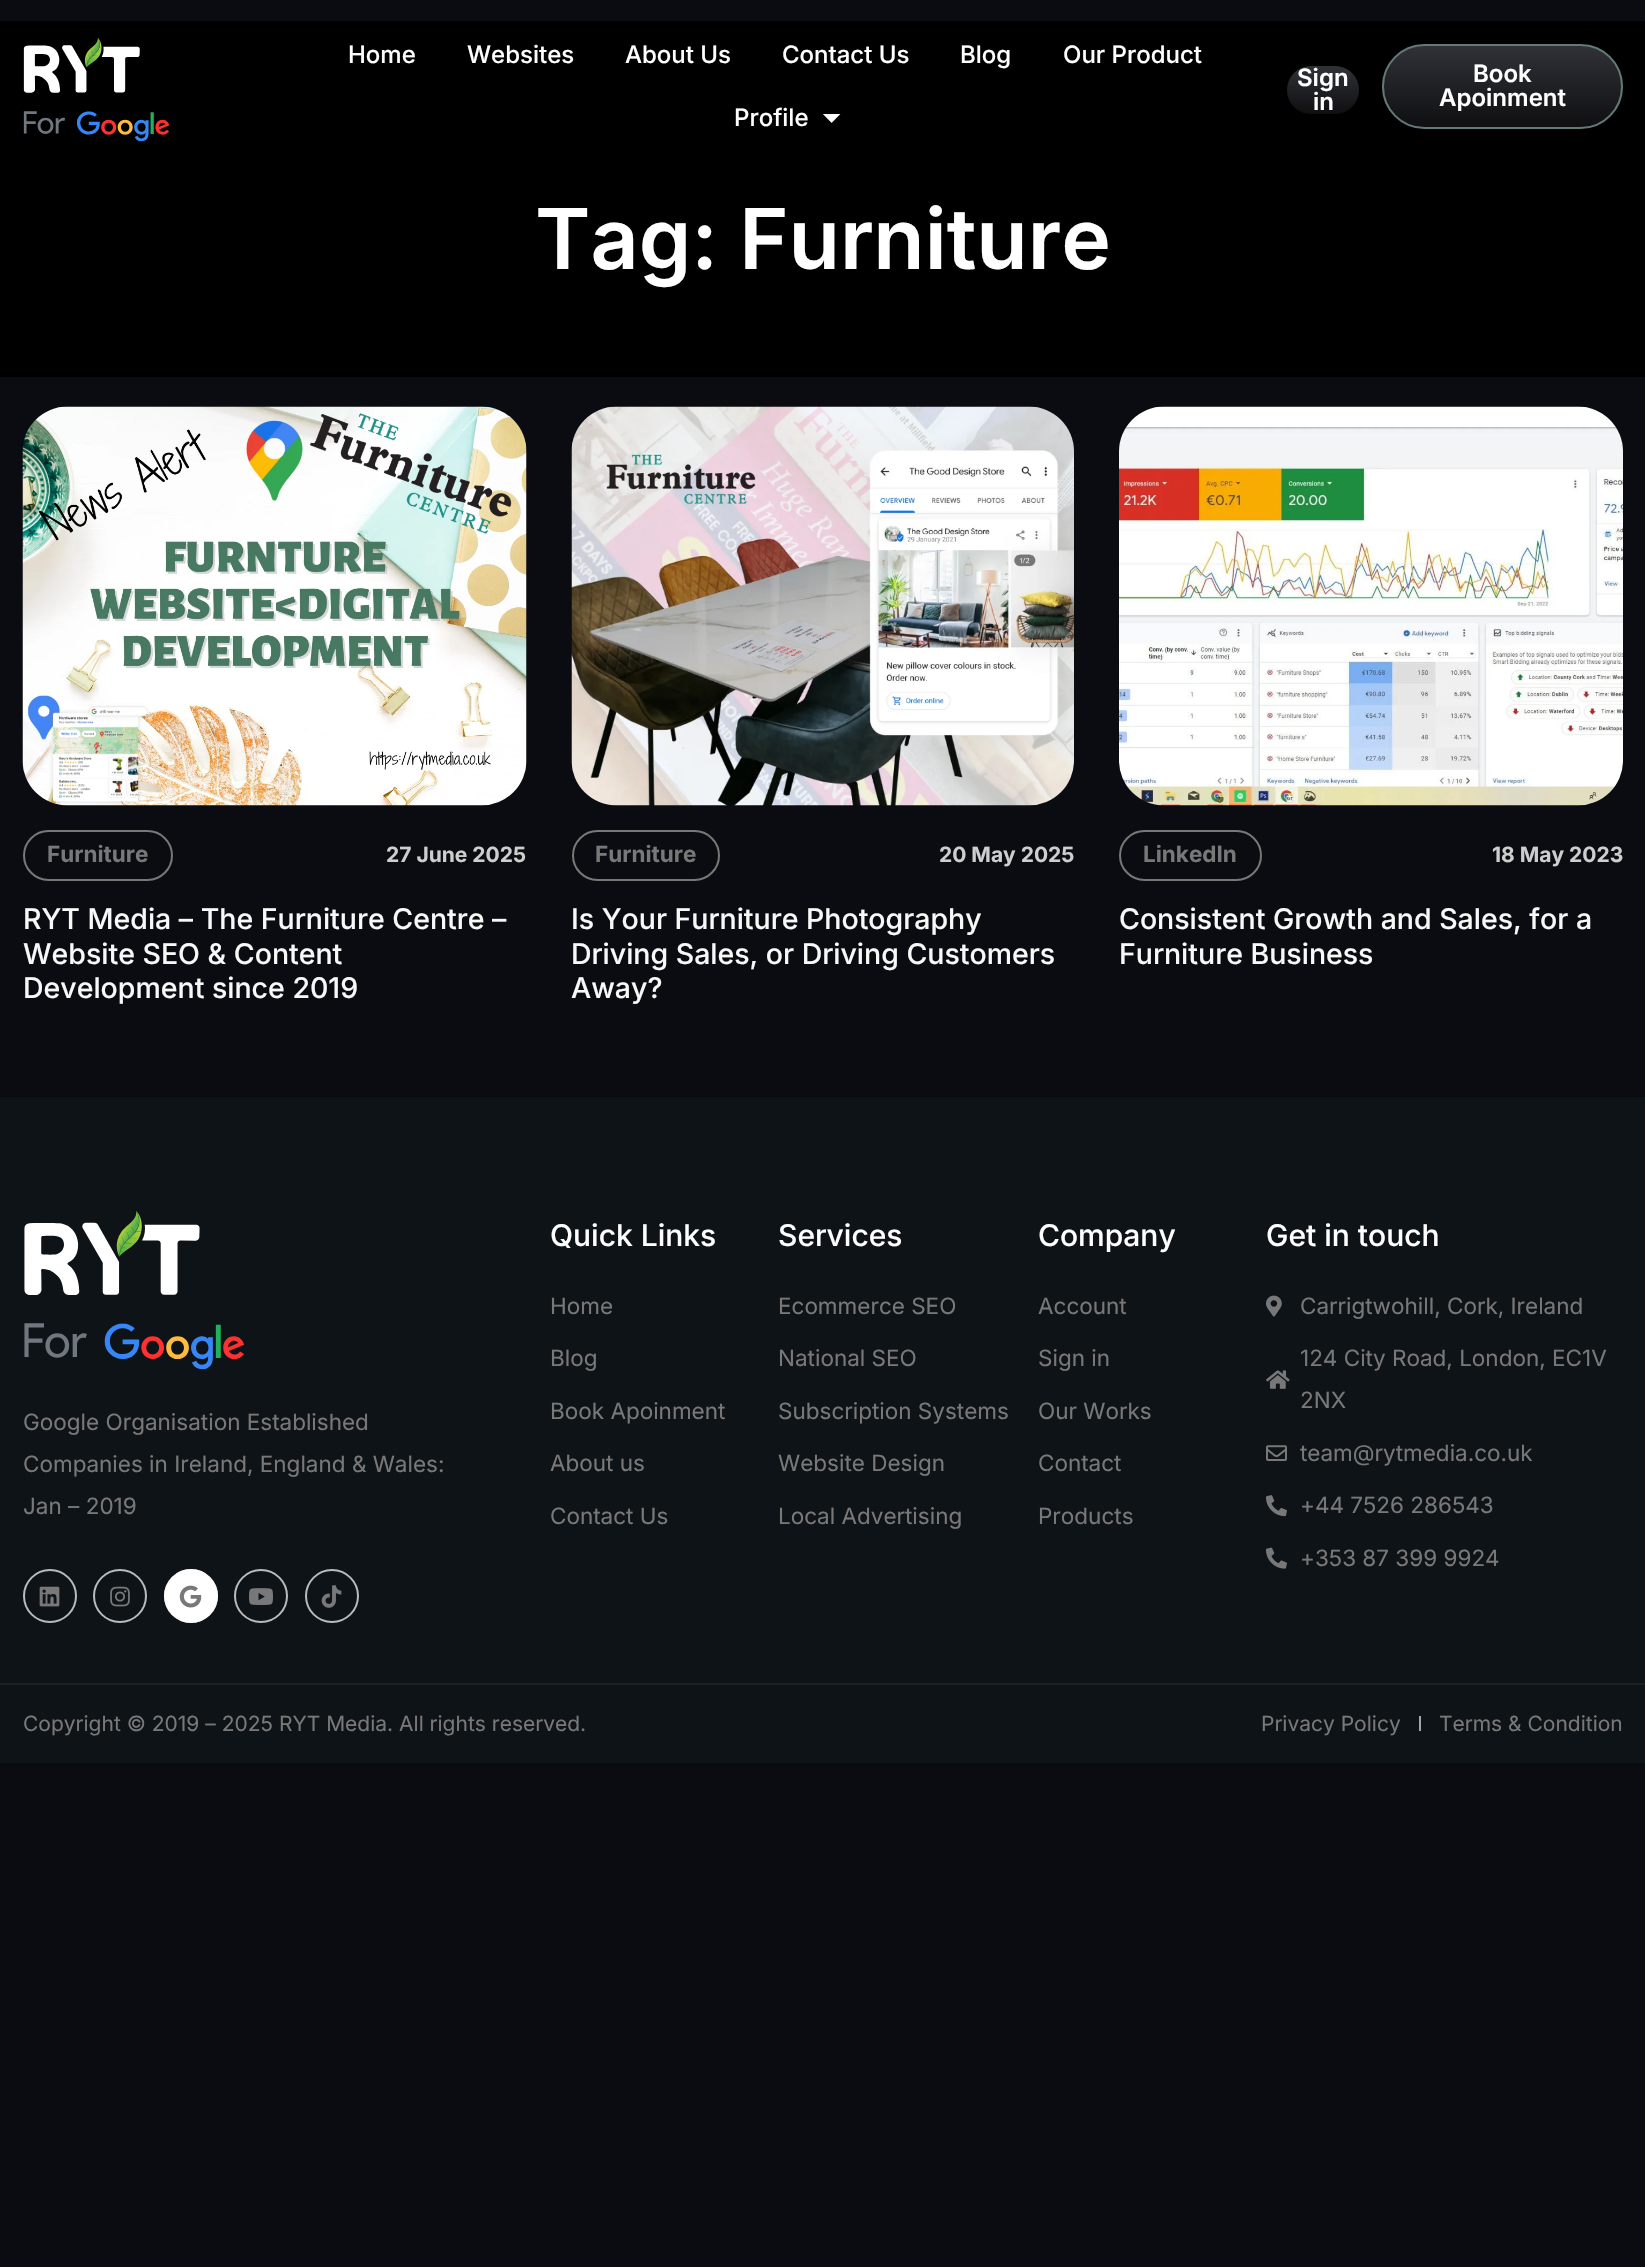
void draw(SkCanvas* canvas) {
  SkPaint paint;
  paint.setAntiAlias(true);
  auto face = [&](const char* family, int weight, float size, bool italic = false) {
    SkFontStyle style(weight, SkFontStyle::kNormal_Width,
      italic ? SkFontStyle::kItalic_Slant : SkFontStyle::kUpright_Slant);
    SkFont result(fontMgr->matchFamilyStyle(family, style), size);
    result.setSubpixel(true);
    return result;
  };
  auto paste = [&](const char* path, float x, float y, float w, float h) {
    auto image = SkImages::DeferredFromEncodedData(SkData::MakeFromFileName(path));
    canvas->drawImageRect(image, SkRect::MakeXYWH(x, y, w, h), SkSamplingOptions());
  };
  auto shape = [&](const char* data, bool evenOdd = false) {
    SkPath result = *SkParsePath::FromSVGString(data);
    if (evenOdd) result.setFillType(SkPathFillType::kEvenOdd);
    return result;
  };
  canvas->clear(0xff0b0c11);
  paint.setColor(0xff000000);
  canvas->drawRect(SkRect::MakeXYWH(0, 21, 1645, 356), paint);
  paste("img/1.png", 23, 38, 147, 103);
  {
    const SkColor colors[] = {0xff303238, 0xff0f0f11};
    const float stops[] = {0, 1};
    const SkPoint ends[] = {{1323, 66}, {1323, 114}};
    paint.setShader(SkGradientShader::MakeLinear(ends, colors, stops, 2, SkTileMode::kClamp));
    paint.setAlpha(255);
  }
  canvas->drawRoundRect(SkRect::MakeXYWH(1287, 66, 72, 48), 24, 24, paint);
  canvas->save();
  canvas->clipPath(shape("M1424.5 44H1580.5C1604 44 1623 63 1623 86.5C1623 110 1604 129 1580.5 129H1424.5C1401 129 1382 110 1382 86.5C1382 63 1401 44 1424.5 44Z"), true);
  {
    const SkColor colors[] = {0xff303238, 0xff0f0f11};
    const float stops[] = {0, 1};
    const SkPoint ends[] = {{1502, 45}, {1502, 128}};
    paint.setShader(SkGradientShader::MakeLinear(ends, colors, stops, 2, SkTileMode::kClamp));
    paint.setAlpha(255);
  }
  canvas->drawRect(SkRect::MakeXYWH(1382, 45, 241, 83), paint);
  canvas->restore();
  paint.setStroke(true);
  paint.setStrokeWidth(2);
  paint.setShader(nullptr);
  paint.setColor(0xff627a77);
  canvas->drawRoundRect(SkRect::MakeXYWH(1383, 45, 239, 83), 41.5f, 41.5f, paint);
  paste("img/2.png", 22, 406, 505, 400);
  paint.setColor(0xff787878);
  canvas->drawRoundRect(SkRect::MakeXYWH(24, 831, 148, 49), 24.5f, 24.5f, paint);
  paste("img/3.png", 571, 406, 503, 400);
  canvas->drawRoundRect(SkRect::MakeXYWH(573, 831, 146, 49), 24.5f, 24.5f, paint);
  paste("img/4.png", 1119, 406, 504, 400);
  canvas->drawRoundRect(SkRect::MakeXYWH(1120, 831, 141, 49), 24.5f, 24.5f, paint);
  paint.setStroke(false);
  paint.setColor(0xff0e1317);
  canvas->drawRect(SkRect::MakeXYWH(0, 1097, 1645, 586), paint);
  paste("img/5.png", 24, 1211, 221, 158);
  paint.setStroke(true);
  paint.setColor(0xffb9bbbc);
  canvas->drawCircle(50, 1596, 26, paint);
  paste("img/6.png", 39, 1586, 21, 21);
  canvas->drawCircle(120, 1596, 26, paint);
  paste("img/7.png", 110, 1586, 20, 21);
  paint.setStroke(false);
  paint.setColor(0xffffffff);
  canvas->drawCircle(191, 1596, 27, paint);
  paint.setStroke(true);
  paint.setColor(0xb5ffffff);
  canvas->drawCircle(191, 1596, 26, paint);
  paste("img/8.png", 179, 1585, 23, 23);
  paint.setColor(0xffb9bbbc);
  canvas->drawCircle(261, 1596, 26, paint);
  paste("img/9.png", 249, 1588, 24, 17);
  canvas->drawCircle(332, 1596, 26, paint);
  paste("img/10.png", 321, 1585, 21, 23);
  paste("img/11.png", 1266, 1295, 16, 22);
  paste("img/12.png", 1266, 1370, 24, 19);
  paste("img/13.png", 1266, 1445, 21, 16);
  paste("img/14.png", 1266, 1495, 21, 22);
  paste("img/15.png", 1266, 1547, 21, 22);
  paint.setStroke(false);
  {
    const struct { float x, y, w, h; SkColor color; } items[] = {
      {0, 1685, 1645, 78, 0xff0e1317},
      {0, 1683, 1645, 2, 0xff1c2125},
      {1419, 1716, 2, 15, 0xffa5a5a5},
    };
    for (auto [x, y, w, h, color] : items) {
      paint.setColor(color);
      canvas->drawRect(SkRect::MakeXYWH(x, y, w, h), paint);
    }
  }
  auto f0 = face("Inter", 500, 24);
  paint.setColor(0xffffffff);
  {
    const struct { const char* s; float x, y; } items[] = {
      {"Home", 348, 63},
      {"Websites", 467, 63},
      {"About Us", 625, 63},
      {"Contact Us", 782, 63},
      {"Blog", 960, 63},
      {"Our Product", 1063, 63},
      {"Profile", 734, 126},
    };
    for (auto [s, x, y] : items) {
      canvas->drawString(s, x, y, f0, paint);
    }
  }
  auto f1 = face("FreeSans", 400, 24);
  canvas->drawString("⏷", 822, 126, f1, paint);
  auto f2 = face("Inter", 600, 24);
  {
    const struct { const char* s; float x, y; } items[] = {
      {"Sign", 1297, 86},
      {"in", 1313, 110},
      {"Book", 1473, 82},
      {"Apoinment", 1439, 106},
    };
    for (auto [s, x, y] : items) {
      canvas->drawString(s, x, y, f2, paint);
    }
  }
  auto f3 = face("Inter", 600, 84);
  canvas->drawString("Tag: Furniture", 535, 269, f3, paint);
  auto f4 = face("Inter", 700, 22.5f);
  paint.setColor(0xff787878);
  canvas->drawString("Furniture", 47, 862, f4, paint);
  auto f5 = face("Inter", 700, 21);
  paint.setColor(0xffcececf);
  canvas->drawString("27 June 2025", 386, 862, f5, paint);
  auto f6 = face("Inter", 500, 28.5f);
  paint.setColor(0xfff8f8f8);
  {
    const struct { const char* s; float x, y; } items[] = {
      {"RYT Media – The Furniture Centre –", 23, 929},
      {"Website SEO & Content", 23, 964},
      {"Development since 2019", 23, 998},
    };
    for (auto [s, x, y] : items) {
      canvas->drawString(s, x, y, f6, paint);
    }
  }
  paint.setColor(0xff787878);
  canvas->drawString("Furniture", 595, 862, f4, paint);
  paint.setColor(0xffcececf);
  canvas->drawString("20 May 2025", 939, 862, f5, paint);
  paint.setColor(0xfff8f8f8);
  {
    const struct { const char* s; float x, y; } items[] = {
      {"Is Your Furniture Photography", 571, 929},
      {"Driving Sales, or Driving Customers", 571, 964},
      {"Away?", 571, 998},
    };
    for (auto [s, x, y] : items) {
      canvas->drawString(s, x, y, f6, paint);
    }
  }
  paint.setColor(0xff787878);
  canvas->drawString("LinkedIn", 1143, 862, f4, paint);
  paint.setColor(0xffcececf);
  canvas->drawString("18 May 2023", 1492, 862, f5, paint);
  paint.setColor(0xfff8f8f8);
  canvas->drawString("Consistent Growth and Sales, for a", 1119, 929, f6, paint);
  canvas->drawString("Furniture Business", 1119, 964, f6, paint);
  auto f7 = face("Inter", 400, 22.5f);
  paint.setColor(0xff787878);
  {
    const struct { const char* s; float x, y; } items[] = {
      {"Google Organisation Established", 23, 1430},
      {"Companies in Ireland, England & Wales:", 23, 1472},
      {"Jan – 2019", 23, 1514},
    };
    for (auto [s, x, y] : items) {
      canvas->drawString(s, x, y, f7, paint);
    }
  }
  auto f8 = face("Inter", 500, 30);
  paint.setColor(0xffffffff);
  canvas->drawString("Quick Links", 550, 1246, f8, paint);
  paint.setColor(0xff787878);
  {
    const struct { const char* s; float x, y; } items[] = {
      {"Home", 550, 1314},
      {"Blog", 550, 1366},
      {"Book Apoinment", 550, 1419},
      {"About us", 550, 1471},
      {"Contact Us", 550, 1524},
    };
    for (auto [s, x, y] : items) {
      canvas->drawString(s, x, y, f7, paint);
    }
  }
  paint.setColor(0xffffffff);
  canvas->drawString("Services", 778, 1246, f8, paint);
  paint.setColor(0xff787878);
  {
    const struct { const char* s; float x, y; } items[] = {
      {"Ecommerce SEO", 778, 1314},
      {"National SEO", 778, 1366},
      {"Subscription Systems", 778, 1419},
      {"Website Design", 778, 1471},
      {"Local Advertising", 778, 1524},
    };
    for (auto [s, x, y] : items) {
      canvas->drawString(s, x, y, f7, paint);
    }
  }
  paint.setColor(0xffffffff);
  canvas->drawString("Company", 1038, 1246, f8, paint);
  paint.setColor(0xff787878);
  {
    const struct { const char* s; float x, y; } items[] = {
      {"Account", 1038, 1314},
      {"Sign in", 1038, 1366},
      {"Our Works", 1038, 1419},
      {"Contact", 1038, 1471},
      {"Products", 1038, 1524},
    };
    for (auto [s, x, y] : items) {
      canvas->drawString(s, x, y, f7, paint);
    }
  }
  paint.setColor(0xffffffff);
  canvas->drawString("Get in touch", 1266, 1246, f8, paint);
  paint.setColor(0xff787878);
  {
    const struct { const char* s; float x, y; } items[] = {
      {"Carrigtwohill, Cork, Ireland", 1300, 1314},
      {"124 City Road, London, EC1V", 1300, 1366},
      {"2NX", 1300, 1408},
      {"team@rytmedia.co.uk", 1300, 1461},
      {"+44 7526 286543", 1300, 1513},
      {"+353 87 399 9924", 1300, 1566},
    };
    for (auto [s, x, y] : items) {
      canvas->drawString(s, x, y, f7, paint);
    }
  }
  auto f9 = face("Inter", 400, 21);
  {
    const struct { const char* s; float x, y; } items[] = {
      {"Copyright © 2019 – 2025 RYT Media. All rights reserved.", 23, 1731},
      {"Privacy Policy", 1261, 1731},
      {"Terms & Condition", 1439, 1731},
    };
    for (auto [s, x, y] : items) {
      canvas->drawString(s, x, y, f9, paint);
    }
  }
}
